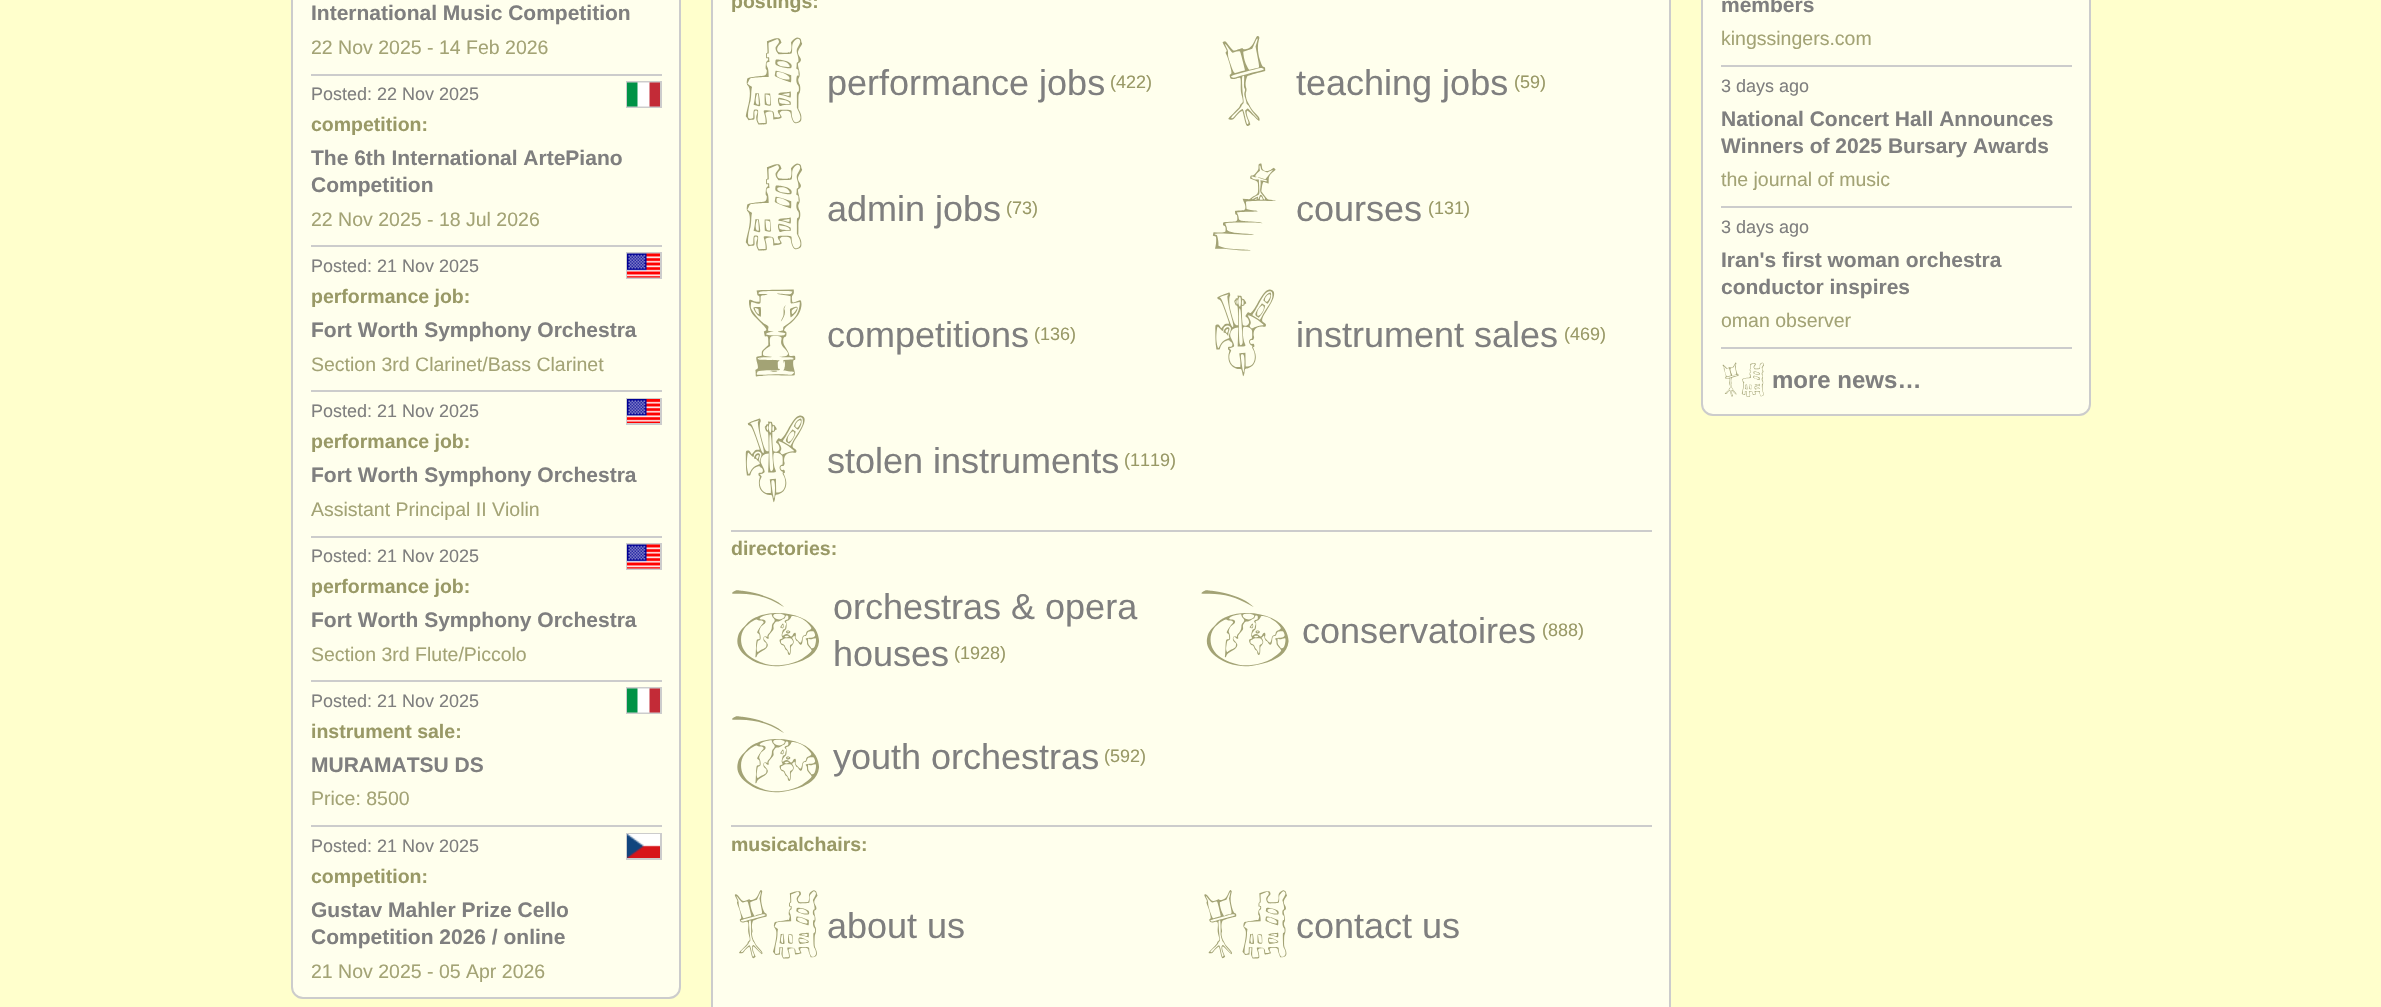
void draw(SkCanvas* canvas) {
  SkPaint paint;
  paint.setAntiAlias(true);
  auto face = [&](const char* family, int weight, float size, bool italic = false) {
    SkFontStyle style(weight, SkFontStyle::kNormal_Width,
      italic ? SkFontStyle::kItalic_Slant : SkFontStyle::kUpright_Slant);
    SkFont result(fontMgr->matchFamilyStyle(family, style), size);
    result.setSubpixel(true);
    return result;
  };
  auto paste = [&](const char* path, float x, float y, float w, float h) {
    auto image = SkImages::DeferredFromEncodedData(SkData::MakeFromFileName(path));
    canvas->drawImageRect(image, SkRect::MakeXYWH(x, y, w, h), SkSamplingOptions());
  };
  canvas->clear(0xffffffcc);
  paint.setColor(0xffffffed);
  canvas->drawRoundRect(SkRect::MakeXYWH(292, -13, 388, 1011), 11, 11, paint);
  paint.setStroke(true);
  paint.setStrokeWidth(2);
  paint.setColor(0xffcccccc);
  canvas->drawRoundRect(SkRect::MakeXYWH(292, -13, 388, 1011), 11, 11, paint);
  paint.setStroke(false);
  canvas->drawRect(SkRect::MakeXYWH(311, 74, 351, 2), paint);
  paint.setStroke(true);
  canvas->drawRect(SkRect::MakeXYWH(627, 82, 34, 25), paint);
  paste("img/1.png", 627, 82, 33, 25);
  paint.setStroke(false);
  canvas->drawRect(SkRect::MakeXYWH(311, 245, 351, 2), paint);
  paint.setStroke(true);
  canvas->drawRect(SkRect::MakeXYWH(627, 253, 34, 25), paint);
  paste("img/2.png", 627, 253, 33, 25);
  paint.setStroke(false);
  canvas->drawRect(SkRect::MakeXYWH(311, 390, 351, 2), paint);
  paint.setStroke(true);
  canvas->drawRect(SkRect::MakeXYWH(627, 399, 34, 25), paint);
  paste("img/3.png", 627, 399, 33, 24);
  paint.setStroke(false);
  canvas->drawRect(SkRect::MakeXYWH(311, 536, 351, 2), paint);
  paint.setStroke(true);
  canvas->drawRect(SkRect::MakeXYWH(627, 544, 34, 25), paint);
  paste("img/2.png", 627, 544, 33, 25);
  paint.setStroke(false);
  canvas->drawRect(SkRect::MakeXYWH(311, 680, 351, 2), paint);
  paint.setStroke(true);
  canvas->drawRect(SkRect::MakeXYWH(627, 688, 34, 25), paint);
  paste("img/1.png", 627, 688, 33, 25);
  paint.setStroke(false);
  canvas->drawRect(SkRect::MakeXYWH(311, 825, 351, 2), paint);
  paint.setStroke(true);
  canvas->drawRect(SkRect::MakeXYWH(627, 834, 34, 25), paint);
  paste("img/4.png", 627, 834, 33, 24);
  paint.setStroke(false);
  paint.setColor(0xffffffed);
  canvas->drawRect(SkRect::MakeXYWH(712, -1, 958, 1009), paint);
  paint.setStroke(true);
  paint.setColor(0xffcccccc);
  canvas->drawRect(SkRect::MakeXYWH(712, -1, 958, 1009), paint);
  paste("img/5.png", 745, 37, 58, 88);
  paste("img/6.png", 1222, 36, 44, 90);
  paste("img/7.png", 745, 163, 58, 88);
  paste("img/8.png", 1212, 163, 64, 88);
  paste("img/9.png", 749, 289, 53, 88);
  paste("img/10.png", 1215, 289, 60, 88);
  paste("img/11.png", 745, 415, 60, 88);
  paint.setStroke(false);
  canvas->drawRect(SkRect::MakeXYWH(731, 530, 921, 2), paint);
  paste("img/12.png", 732, 590, 87, 77);
  paste("img/13.png", 1201, 590, 88, 77);
  paste("img/12.png", 732, 716, 87, 77);
  canvas->drawRect(SkRect::MakeXYWH(731, 825, 921, 2), paint);
  paste("img/14.png", 734, 890, 84, 69);
  paste("img/15.png", 1204, 890, 83, 69);
  paint.setColor(0xffffffed);
  canvas->drawRoundRect(SkRect::MakeXYWH(1702, -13, 388, 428), 11, 11, paint);
  paint.setStroke(true);
  paint.setColor(0xffcccccc);
  canvas->drawRoundRect(SkRect::MakeXYWH(1702, -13, 388, 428), 11, 11, paint);
  paint.setStroke(false);
  {
    const struct { float x, y, w, h; SkColor color; } items[] = {
      {1721, 65, 351, 2, 0xffcccccc},
      {1721, 206, 351, 2, 0xffcccccc},
      {1721, 347, 351, 2, 0xffcccccc},
    };
    for (auto [x, y, w, h, color] : items) {
      paint.setColor(color);
      canvas->drawRect(SkRect::MakeXYWH(x, y, w, h), paint);
    }
  }
  paste("img/16.png", 1722, 362, 42, 35);
  auto f0 = face("Liberation Sans", 700, 21);
  paint.setColor(0xff7f7f7f);
  canvas->drawString("International Music Competition", 311, 20, f0, paint);
  auto f1 = face("Liberation Sans", 400, 19.5f);
  paint.setColor(0xffa3a375);
  canvas->drawString("22 Nov 2025 - 14 Feb 2026", 311, 54, f1, paint);
  auto f2 = face("Liberation Sans", 400, 18);
  paint.setColor(0xff7f7f7f);
  canvas->drawString("Posted: 22 Nov 2025", 311, 100, f2, paint);
  auto f3 = face("Liberation Sans", 700, 19.5f);
  paint.setColor(0xff999966);
  canvas->drawString("competition:", 311, 131, f3, paint);
  paint.setColor(0xff7f7f7f);
  canvas->drawString("The 6th International ArtePiano", 311, 165, f0, paint);
  canvas->drawString("Competition", 311, 192, f0, paint);
  paint.setColor(0xffa3a375);
  canvas->drawString("22 Nov 2025 - 18 Jul 2026", 311, 226, f1, paint);
  paint.setColor(0xff7f7f7f);
  canvas->drawString("Posted: 21 Nov 2025", 311, 272, f2, paint);
  paint.setColor(0xff999966);
  canvas->drawString("performance job:", 311, 303, f3, paint);
  paint.setColor(0xff7f7f7f);
  canvas->drawString("Fort Worth Symphony Orchestra", 311, 337, f0, paint);
  paint.setColor(0xffa3a375);
  canvas->drawString("Section 3rd Clarinet/Bass Clarinet", 311, 371, f1, paint);
  paint.setColor(0xff7f7f7f);
  canvas->drawString("Posted: 21 Nov 2025", 311, 417, f2, paint);
  paint.setColor(0xff999966);
  canvas->drawString("performance job:", 311, 448, f3, paint);
  paint.setColor(0xff7f7f7f);
  canvas->drawString("Fort Worth Symphony Orchestra", 311, 482, f0, paint);
  paint.setColor(0xffa3a375);
  canvas->drawString("Assistant Principal II Violin", 311, 516, f1, paint);
  paint.setColor(0xff7f7f7f);
  canvas->drawString("Posted: 21 Nov 2025", 311, 562, f2, paint);
  paint.setColor(0xff999966);
  canvas->drawString("performance job:", 311, 593, f3, paint);
  paint.setColor(0xff7f7f7f);
  canvas->drawString("Fort Worth Symphony Orchestra", 311, 627, f0, paint);
  paint.setColor(0xffa3a375);
  canvas->drawString("Section 3rd Flute/Piccolo", 311, 661, f1, paint);
  paint.setColor(0xff7f7f7f);
  canvas->drawString("Posted: 21 Nov 2025", 311, 707, f2, paint);
  paint.setColor(0xff999966);
  canvas->drawString("instrument sale:", 311, 738, f3, paint);
  paint.setColor(0xff7f7f7f);
  canvas->drawString("MURAMATSU DS", 311, 772, f0, paint);
  paint.setColor(0xffa3a375);
  canvas->drawString("Price: 8500", 311, 805, f1, paint);
  paint.setColor(0xff7f7f7f);
  canvas->drawString("Posted: 21 Nov 2025", 311, 852, f2, paint);
  paint.setColor(0xff999966);
  canvas->drawString("competition:", 311, 883, f3, paint);
  paint.setColor(0xff7f7f7f);
  canvas->drawString("Gustav Mahler Prize Cello", 311, 917, f0, paint);
  canvas->drawString("Competition 2026 / online", 311, 944, f0, paint);
  paint.setColor(0xffa3a375);
  canvas->drawString("21 Nov 2025 - 05 Apr 2026", 311, 978, f1, paint);
  paint.setColor(0xff999966);
  canvas->drawString("postings:", 731, 8, f3, paint);
  auto f4 = face("Liberation Sans", 400, 36);
  paint.setColor(0xff7f7f7f);
  canvas->drawString("performance jobs", 827, 95, f4, paint);
  paint.setColor(0xff999966);
  canvas->drawString("(422)", 1110, 88, f2, paint);
  paint.setColor(0xff7f7f7f);
  canvas->drawString("teaching jobs", 1296, 95, f4, paint);
  paint.setColor(0xff999966);
  canvas->drawString("(59)", 1514, 88, f2, paint);
  paint.setColor(0xff7f7f7f);
  canvas->drawString("admin jobs", 827, 221, f4, paint);
  paint.setColor(0xff999966);
  canvas->drawString("(73)", 1006, 214, f2, paint);
  paint.setColor(0xff7f7f7f);
  canvas->drawString("courses", 1296, 221, f4, paint);
  paint.setColor(0xff999966);
  canvas->drawString("(131)", 1428, 214, f2, paint);
  paint.setColor(0xff7f7f7f);
  canvas->drawString("competitions", 827, 347, f4, paint);
  paint.setColor(0xff999966);
  canvas->drawString("(136)", 1034, 340, f2, paint);
  paint.setColor(0xff7f7f7f);
  canvas->drawString("instrument sales", 1296, 347, f4, paint);
  paint.setColor(0xff999966);
  canvas->drawString("(469)", 1564, 340, f2, paint);
  paint.setColor(0xff7f7f7f);
  canvas->drawString("stolen instruments", 827, 473, f4, paint);
  paint.setColor(0xff999966);
  canvas->drawString("(1119)", 1124, 466, f2, paint);
  canvas->drawString("directories:", 731, 555, f3, paint);
  paint.setColor(0xff7f7f7f);
  canvas->drawString("orchestras & opera", 833, 619, f4, paint);
  canvas->drawString("houses", 833, 666, f4, paint);
  paint.setColor(0xff999966);
  canvas->drawString("(1928)", 954, 659, f2, paint);
  paint.setColor(0xff7f7f7f);
  canvas->drawString("conservatoires", 1302, 643, f4, paint);
  paint.setColor(0xff999966);
  canvas->drawString("(888)", 1542, 636, f2, paint);
  paint.setColor(0xff7f7f7f);
  canvas->drawString("youth orchestras", 833, 769, f4, paint);
  paint.setColor(0xff999966);
  canvas->drawString("(592)", 1104, 762, f2, paint);
  canvas->drawString("musicalchairs:", 731, 851, f3, paint);
  paint.setColor(0xff7f7f7f);
  canvas->drawString("about us", 827, 938, f4, paint);
  canvas->drawString("contact us", 1296, 938, f4, paint);
  canvas->drawString("members", 1721, 12, f0, paint);
  paint.setColor(0xffa3a375);
  canvas->drawString("kingssingers.com", 1721, 45, f1, paint);
  paint.setColor(0xff7f7f7f);
  canvas->drawString("3 days ago", 1721, 92, f2, paint);
  canvas->drawString("National Concert Hall Announces", 1721, 126, f0, paint);
  canvas->drawString("Winners of 2025 Bursary Awards", 1721, 153, f0, paint);
  paint.setColor(0xffa3a375);
  canvas->drawString("the journal of music", 1721, 186, f1, paint);
  paint.setColor(0xff7f7f7f);
  canvas->drawString("3 days ago", 1721, 233, f2, paint);
  canvas->drawString("Iran's first woman orchestra", 1721, 267, f0, paint);
  canvas->drawString("conductor inspires", 1721, 294, f0, paint);
  paint.setColor(0xffa3a375);
  canvas->drawString("oman observer", 1721, 327, f1, paint);
  auto f5 = face("Liberation Sans", 700, 24);
  paint.setColor(0xff7f7f7f);
  canvas->drawString("more news…", 1772, 388, f5, paint);
}
